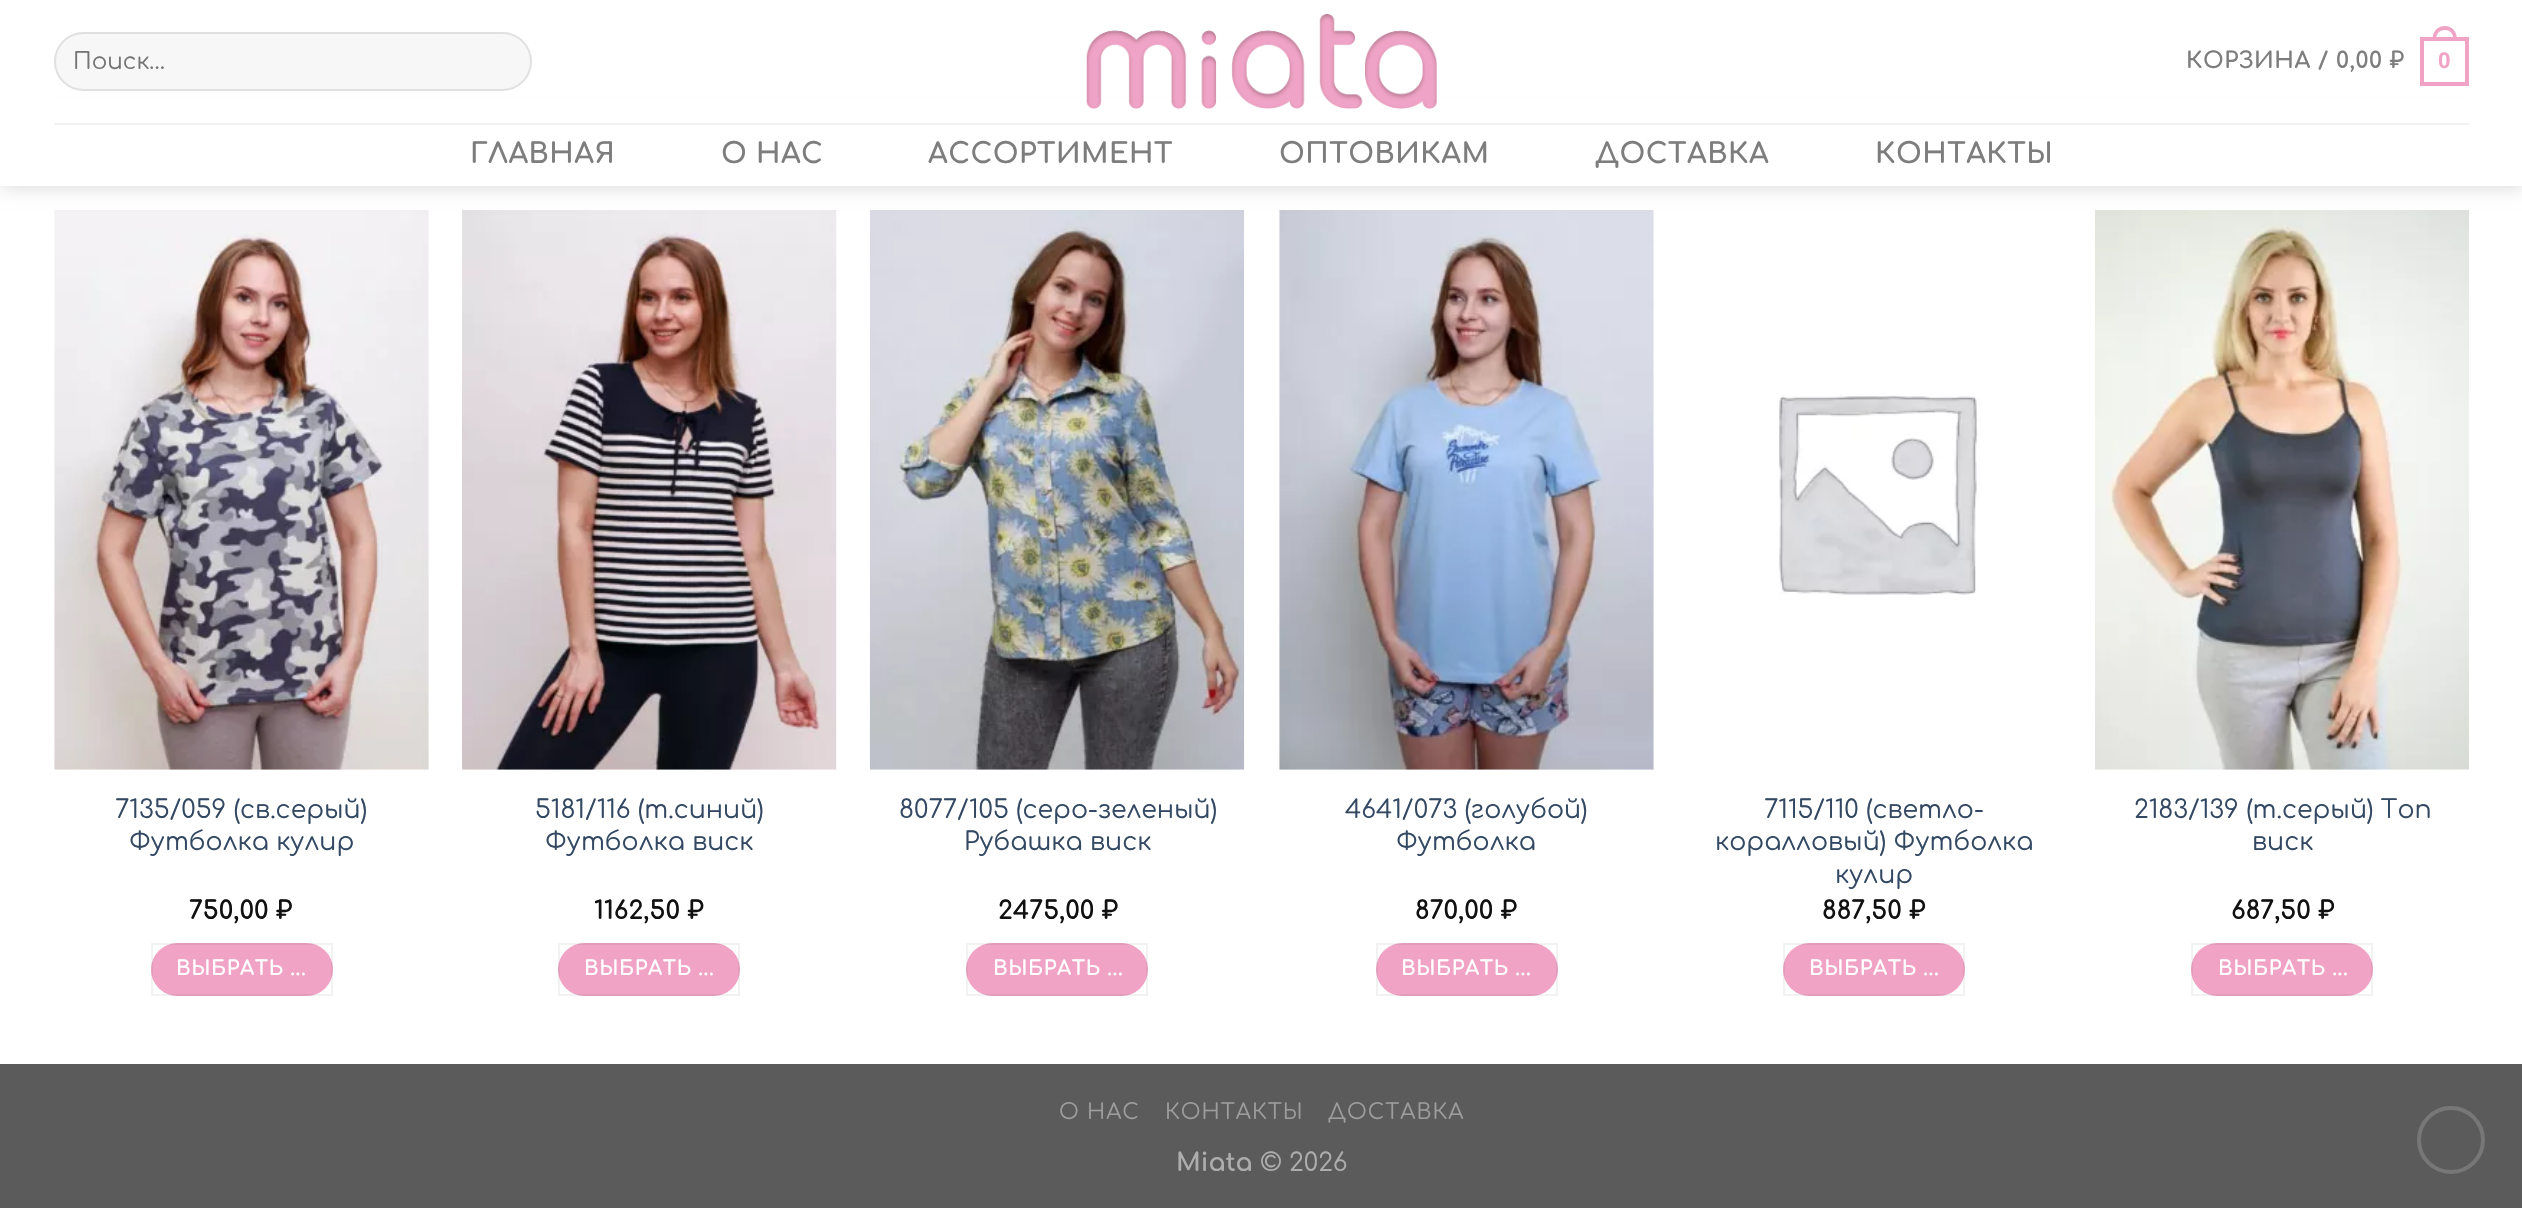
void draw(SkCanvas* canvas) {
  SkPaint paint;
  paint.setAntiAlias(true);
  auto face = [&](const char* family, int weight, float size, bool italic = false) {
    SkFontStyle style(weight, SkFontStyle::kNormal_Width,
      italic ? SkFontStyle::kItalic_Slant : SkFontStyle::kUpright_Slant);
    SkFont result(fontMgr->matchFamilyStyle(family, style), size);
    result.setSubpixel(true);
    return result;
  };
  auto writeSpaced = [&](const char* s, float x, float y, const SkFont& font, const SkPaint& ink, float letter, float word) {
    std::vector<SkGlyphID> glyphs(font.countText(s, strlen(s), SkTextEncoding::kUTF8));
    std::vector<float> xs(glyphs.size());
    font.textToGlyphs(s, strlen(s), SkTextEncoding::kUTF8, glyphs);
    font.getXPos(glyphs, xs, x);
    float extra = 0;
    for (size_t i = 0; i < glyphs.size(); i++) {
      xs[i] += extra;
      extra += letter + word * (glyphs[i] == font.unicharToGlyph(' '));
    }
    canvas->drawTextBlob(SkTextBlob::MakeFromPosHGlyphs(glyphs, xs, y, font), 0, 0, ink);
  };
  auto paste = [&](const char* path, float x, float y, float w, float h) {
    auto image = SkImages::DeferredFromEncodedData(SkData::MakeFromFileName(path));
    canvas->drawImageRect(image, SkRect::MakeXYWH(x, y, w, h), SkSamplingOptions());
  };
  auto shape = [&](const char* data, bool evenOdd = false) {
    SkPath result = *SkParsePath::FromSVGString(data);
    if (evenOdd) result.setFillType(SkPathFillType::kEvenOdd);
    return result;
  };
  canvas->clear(0xffffffff);
  paint.setColor(0xffececec);
  canvas->drawRect(SkRect::MakeXYWH(54, 96, 2415, 2), paint);
  paste("img/2.png", 54, 210, 375, 560);
  paste("img/3.png", 462, 210, 375, 560);
  paste("img/4.png", 869, 210, 376, 560);
  paste("img/5.png", 1279, 210, 375, 560);
  paste("img/7.png", 2095, 210, 374, 560);
  canvas->save();
  canvas->clipPath(shape("M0 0H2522V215H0ZM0 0H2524V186H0Z", true), true);
  paint.setColor(0x26000000);
  paint.setMaskFilter(SkMaskFilter::MakeBlur(kNormal_SkBlurStyle, 9));
  canvas->drawRect(SkRect::MakeXYWH(2, 2, 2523, 185), paint);
  paint.setMaskFilter(nullptr);
  canvas->restore();
  paint.setColor(0xfff7f7f7);
  canvas->drawRoundRect(SkRect::MakeXYWH(54, 32, 478, 59), 29.5f, 29.5f, paint);
  paint.setStroke(true);
  paint.setStrokeWidth(2);
  paint.setColor(0x17000000);
  canvas->drawRoundRect(SkRect::MakeXYWH(55, 33, 476, 57), 28.5f, 28.5f, paint);
  paint.setStroke(false);
  paint.setColor(0xe6ffffff);
  canvas->drawRect(SkRect::MakeXYWH(0, 96, 2522, 90), paint);
  paste("img/1.png", 1086, 14, 351, 95);
  paint.setStroke(true);
  paint.setStrokeWidth(4);
  paint.setColor(0xfff0a3c5);
  canvas->drawRect(SkRect::MakeXYWH(2422, 39, 45, 45), paint);
  paint.setStroke(false);
  canvas->drawPath(shape("M2445 26C2453 26 2457 32.5 2457 40H2432.5C2432.5 32.5 2436.5 26 2445 26ZM2445 30C2451 30 2453.5 34.5 2453.5 40H2436C2436 34.5 2438.5 30 2445 30Z", true), paint);
  paint.setColor(0xfff1f1f1);
  canvas->drawRect(SkRect::MakeXYWH(54, 123, 2415, 2), paint);
  paint.setColor(0xfff0a3c5);
  canvas->drawRoundRect(SkRect::MakeXYWH(151, 943, 182, 53), 26.5f, 26.5f, paint);
  paint.setStroke(true);
  paint.setStrokeWidth(2);
  paint.setColor(0x0d000000);
  canvas->drawRect(SkRect::MakeXYWH(152, 944, 180, 51), paint);
  paint.setStroke(false);
  paint.setColor(0xfff0a3c5);
  canvas->drawRoundRect(SkRect::MakeXYWH(558, 943, 182, 53), 26.5f, 26.5f, paint);
  paint.setStroke(true);
  paint.setColor(0x0d000000);
  canvas->drawRect(SkRect::MakeXYWH(559, 944, 180, 51), paint);
  paint.setStroke(false);
  paint.setColor(0xfff0a3c5);
  canvas->drawRoundRect(SkRect::MakeXYWH(966, 943, 182, 53), 26.5f, 26.5f, paint);
  paint.setStroke(true);
  paint.setColor(0x0d000000);
  canvas->drawRect(SkRect::MakeXYWH(967, 944, 180, 51), paint);
  paint.setStroke(false);
  paint.setColor(0xfff0a3c5);
  canvas->drawRoundRect(SkRect::MakeXYWH(1376, 943, 182, 53), 26.5f, 26.5f, paint);
  paint.setStroke(true);
  paint.setColor(0x0d000000);
  canvas->drawRect(SkRect::MakeXYWH(1377, 944, 180, 51), paint);
  paste("img/6.png", 1779, 394, 202, 201);
  paint.setStroke(false);
  paint.setColor(0xfff0a3c5);
  canvas->drawRoundRect(SkRect::MakeXYWH(1783, 943, 182, 53), 26.5f, 26.5f, paint);
  paint.setStroke(true);
  paint.setColor(0x0d000000);
  canvas->drawRect(SkRect::MakeXYWH(1784, 944, 180, 51), paint);
  paint.setStroke(false);
  paint.setColor(0xfff0a3c5);
  canvas->drawRoundRect(SkRect::MakeXYWH(2191, 943, 182, 53), 26.5f, 26.5f, paint);
  paint.setStroke(true);
  paint.setColor(0x0d000000);
  canvas->drawRect(SkRect::MakeXYWH(2192, 944, 180, 51), paint);
  paint.setStroke(false);
  paint.setColor(0xff5b5b5b);
  canvas->drawRect(SkRect::MakeXYWH(0, 1064, 2522, 144), paint);
  paint.setStroke(true);
  paint.setStrokeWidth(4);
  paint.setColor(0xff777777);
  canvas->drawCircle(2451, 1140, 32, paint);
  auto f0 = face("Comfortaa", 400, 23);
  paint.setStroke(false);
  paint.setColor(0xff757575);
  canvas->drawString("Поиск…", 73, 69, f0, paint);
  auto f1 = face("Comfortaa", 700, 22.5f);
  paint.setColor(0xff7d7d7d);
  writeSpaced("КОРЗИНА / 0,00 ₽", 2186, 68, f1, paint, 0.5f, 0);
  auto f2 = face("Liberation Sans", 700, 22.5f);
  paint.setColor(0xfff0a3c5);
  writeSpaced("0", 2438, 68, f2, paint, 0.5f, 0);
  auto f3 = face("Comfortaa", 700, 28);
  paint.setColor(0xff7d7d7d);
  {
    const struct { const char* s; float x, y; } items[] = {
      {"ГЛАВНАЯ", 470, 163},
      {"О НАС", 721, 163},
      {"АССОРТИМЕНТ", 928, 163},
      {"ОПТОВИКАМ", 1279, 163},
      {"ДОСТАВКА", 1595, 163},
      {"КОНТАКТЫ", 1875, 163},
    };
    for (auto [s, x, y] : items) {
      writeSpaced(s, x, y, f3, paint, 0.5f, 0);
    }
  }
  auto f4 = face("Comfortaa", 400, 25.25f);
  paint.setColor(0xff334862);
  canvas->drawString("7135/059 (св.серый)", 115, 818, f4, paint);
  canvas->drawString("Футболка кулир", 129, 850, f4, paint);
  auto f5 = face("Comfortaa", 700, 25.25f);
  paint.setColor(0xff111111);
  canvas->drawString("750,00 ₽", 189, 919, f5, paint);
  auto f6 = face("Comfortaa", 700, 20.25f);
  paint.setColor(0xffffffff);
  writeSpaced("ВЫБРАТЬ ...", 176, 975, f6, paint, 0.6f, 0);
  paint.setColor(0xff334862);
  canvas->drawString("5181/116 (т.синий)", 535, 818, f4, paint);
  canvas->drawString("Футболка виск", 545, 850, f4, paint);
  paint.setColor(0xff111111);
  canvas->drawString("1162,50 ₽", 594, 919, f5, paint);
  paint.setColor(0xffffffff);
  writeSpaced("ВЫБРАТЬ ...", 584, 975, f6, paint, 0.6f, 0);
  paint.setColor(0xff334862);
  canvas->drawString("8077/105 (серо-зеленый)", 899, 818, f4, paint);
  canvas->drawString("Рубашка виск", 964, 850, f4, paint);
  paint.setColor(0xff111111);
  canvas->drawString("2475,00 ₽", 998, 919, f5, paint);
  paint.setColor(0xffffffff);
  writeSpaced("ВЫБРАТЬ ...", 993, 975, f6, paint, 0.6f, 0);
  paint.setColor(0xff334862);
  canvas->drawString("4641/073 (голубой)", 1345, 818, f4, paint);
  canvas->drawString("Футболка", 1396, 850, f4, paint);
  paint.setColor(0xff111111);
  canvas->drawString("870,00 ₽", 1415, 919, f5, paint);
  paint.setColor(0xffffffff);
  writeSpaced("ВЫБРАТЬ ...", 1401, 975, f6, paint, 0.6f, 0);
  paint.setColor(0xff334862);
  {
    const struct { const char* s; float x, y; } items[] = {
      {"7115/110 (светло-", 1764, 818},
      {"коралловый) Футболка", 1715, 850},
      {"кулир", 1835, 883},
    };
    for (auto [s, x, y] : items) {
      canvas->drawString(s, x, y, f4, paint);
    }
  }
  paint.setColor(0xff111111);
  canvas->drawString("887,50 ₽", 1822, 919, f5, paint);
  paint.setColor(0xffffffff);
  writeSpaced("ВЫБРАТЬ ...", 1809, 975, f6, paint, 0.6f, 0);
  paint.setColor(0xff334862);
  canvas->drawString("2183/139 (т.серый) Топ", 2134, 818, f4, paint);
  canvas->drawString("виск", 2252, 850, f4, paint);
  paint.setColor(0xff111111);
  canvas->drawString("687,50 ₽", 2231, 919, f5, paint);
  paint.setColor(0xffffffff);
  writeSpaced("ВЫБРАТЬ ...", 2218, 975, f6, paint, 0.6f, 0);
  auto f7 = face("Comfortaa", 400, 21.5f);
  paint.setColor(0xff9d9d9d);
  {
    const struct { const char* s; float x, y; } items[] = {
      {"О НАС", 1059, 1119},
      {"КОНТАКТЫ", 1165, 1119},
      {"ДОСТАВКА", 1328, 1119},
    };
    for (auto [s, x, y] : items) {
      writeSpaced(s, x, y, f7, paint, 1, 0);
    }
  }
  paint.setColor(0xffadadad);
  canvas->drawString("Miata", 1176, 1171, f5, paint);
  canvas->drawString("© 2026", 1260, 1171, f4, paint);
}
